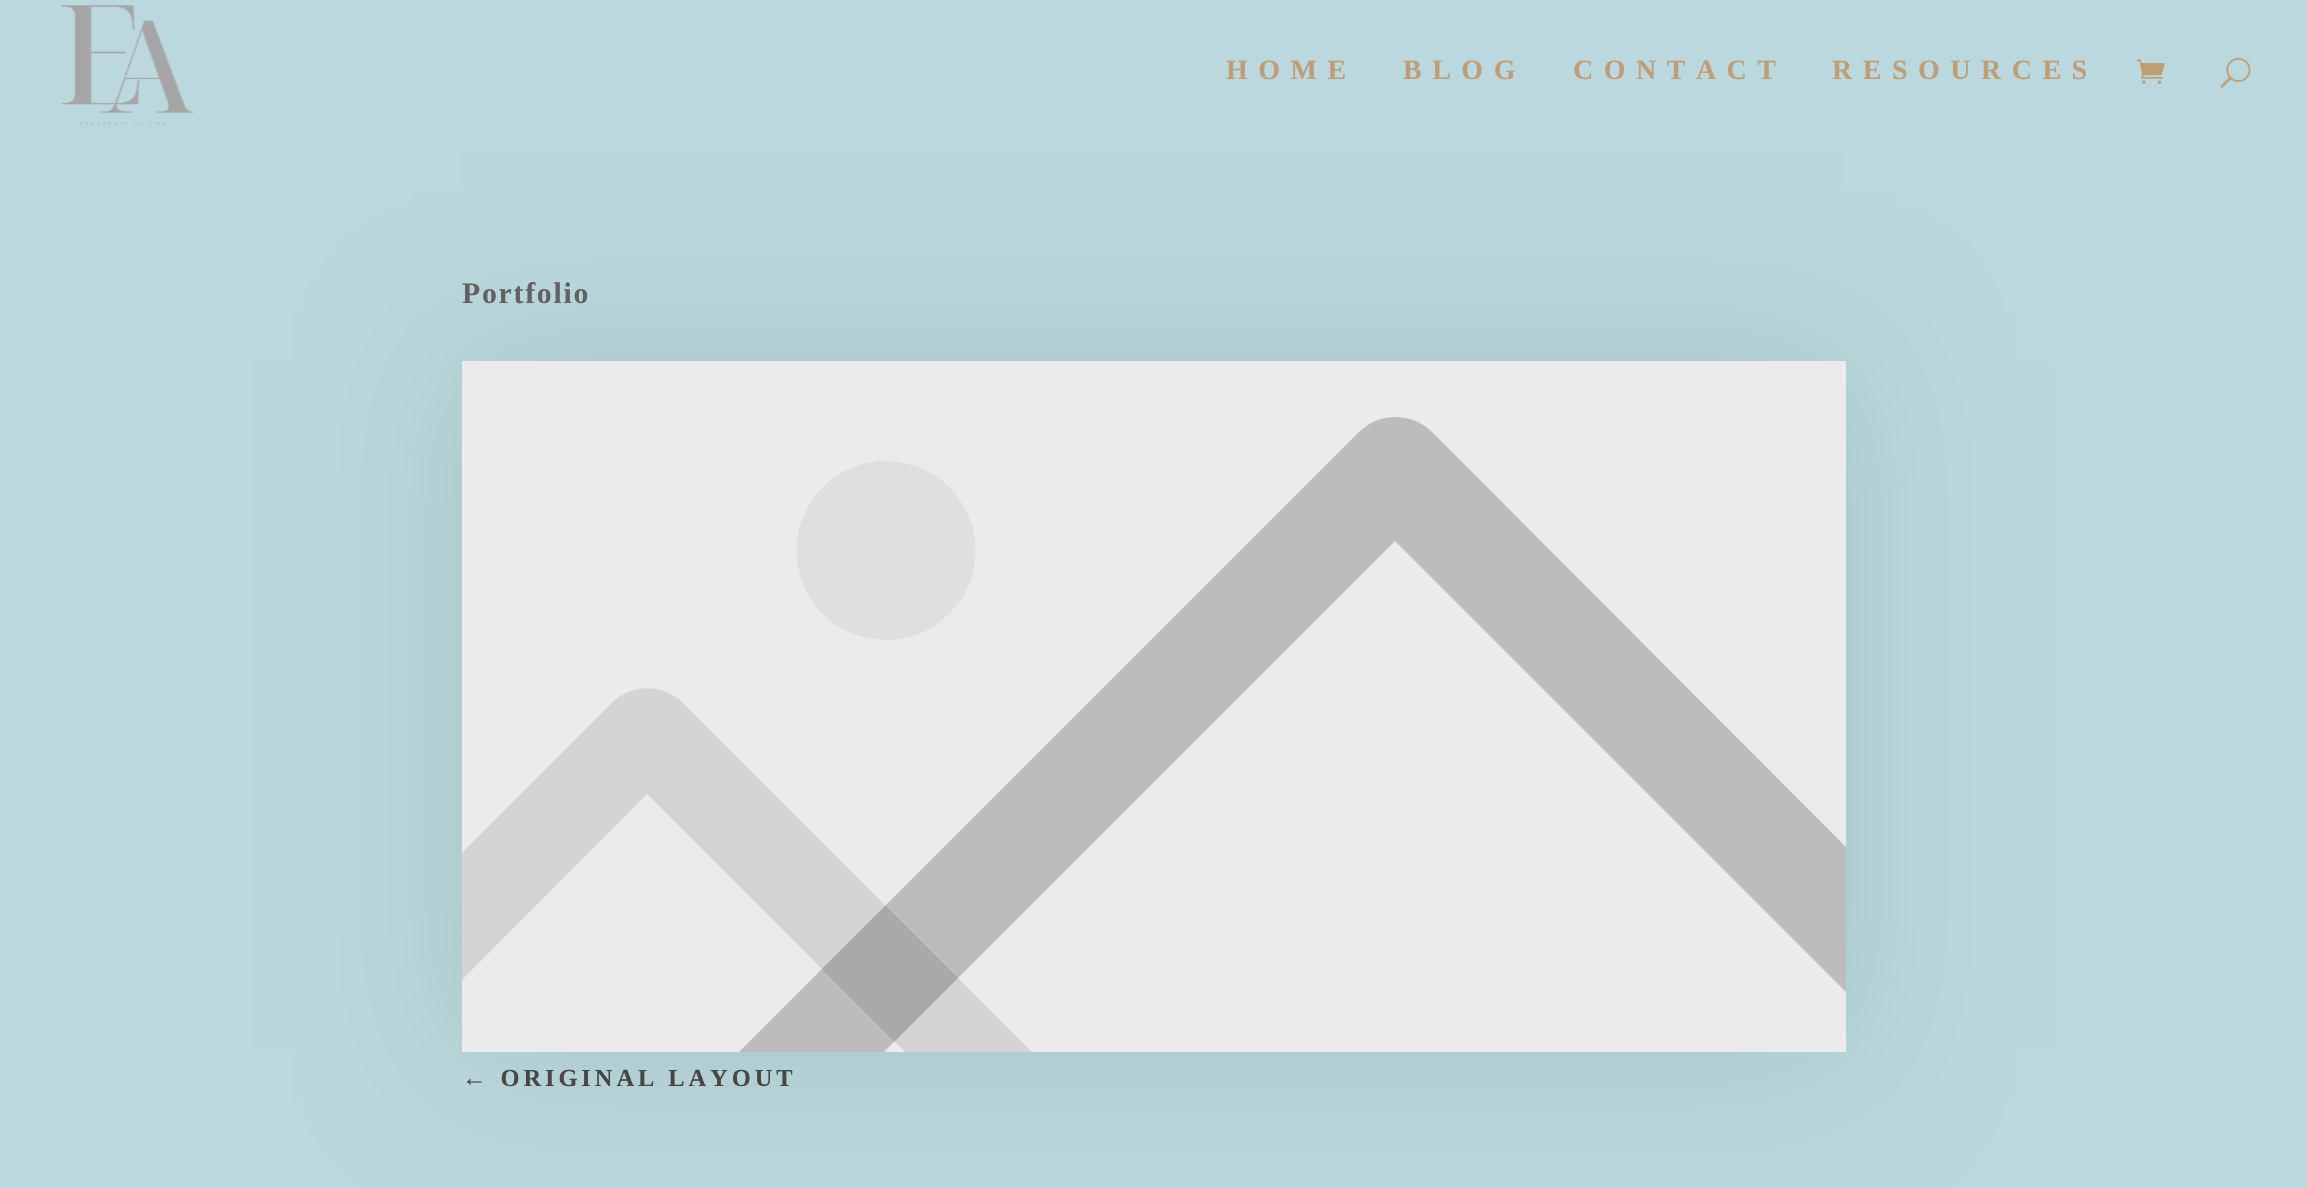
void draw(SkCanvas* canvas) {
  SkPaint paint;
  paint.setAntiAlias(true);
  auto face = [&](const char* family, int weight, float size, bool italic = false) {
    SkFontStyle style(weight, SkFontStyle::kNormal_Width,
      italic ? SkFontStyle::kItalic_Slant : SkFontStyle::kUpright_Slant);
    SkFont result(fontMgr->matchFamilyStyle(family, style), size);
    result.setSubpixel(true);
    return result;
  };
  auto writeSpaced = [&](const char* s, float x, float y, const SkFont& font, const SkPaint& ink, float letter, float word) {
    std::vector<SkGlyphID> glyphs(font.countText(s, strlen(s), SkTextEncoding::kUTF8));
    std::vector<float> xs(glyphs.size());
    font.textToGlyphs(s, strlen(s), SkTextEncoding::kUTF8, glyphs);
    font.getXPos(glyphs, xs, x);
    float extra = 0;
    for (size_t i = 0; i < glyphs.size(); i++) {
      xs[i] += extra;
      extra += letter + word * (glyphs[i] == font.unicharToGlyph(' '));
    }
    canvas->drawTextBlob(SkTextBlob::MakeFromPosHGlyphs(glyphs, xs, y, font), 0, 0, ink);
  };
  auto paste = [&](const char* path, float x, float y, float w, float h) {
    auto image = SkImages::DeferredFromEncodedData(SkData::MakeFromFileName(path));
    canvas->drawImageRect(image, SkRect::MakeXYWH(x, y, w, h), SkSamplingOptions());
  };
  auto shape = [&](const char* data, bool evenOdd = false) {
    SkPath result = *SkParsePath::FromSVGString(data);
    if (evenOdd) result.setFillType(SkPathFillType::kEvenOdd);
    return result;
  };
  canvas->clear(0xffbad8dd);
  paste("img/1.png", 61, 5, 133, 120);
  paste("img/2.png", 2136, 59, 29, 25);
  paste("img/3.png", 2220, 57, 31, 31);
  paint.setColor(0x1a000000);
  paint.setMaskFilter(SkMaskFilter::MakeBlur(kNormal_SkBlurStyle, 70));
  canvas->drawRect(SkRect::MakeXYWH(462, 361, 1384, 691), paint);
  paint.setMaskFilter(nullptr);
  paint.setColor(0xffebebeb);
  canvas->drawRect(SkRect::MakeXYWH(462, 361, 1384, 691), paint);
  paint.setColor(0xffdfdfdf);
  canvas->drawCircle(886, 550.5f, 89.5f, paint);
  canvas->save();
  canvas->clipRect(SkRect::MakeXYWH(462, 361, 1384, 691));
  paint.setColor(0xffd4d4d4);
  canvas->drawPath(shape("M1033 1053H906L647 794L462 980V853L611 704C631 683 664 683 684 704Z"), paint);
  paint.setColor(0x33000000);
  canvas->drawPath(shape("M1846 847V992L1395 541L883 1053H738L1359 432C1379 412 1412 412 1432 432Z"), paint);
  canvas->restore();
  auto f0 = face("Liberation Serif", 700, 28);
  paint.setColor(0xffbf9e77);
  {
    const struct { const char* s; float x, y; } items[] = {
      {"HOME", 1226, 79},
      {"BLOG", 1403, 79},
      {"CONTACT", 1573, 79},
      {"RESOURCES", 1832, 79},
    };
    for (auto [s, x, y] : items) {
      writeSpaced(s, x, y, f0, paint, 10.5f, 0);
    }
  }
  auto f1 = face("Liberation Serif", 700, 29.75f);
  paint.setColor(0xff626262);
  writeSpaced("Portfolio", 462, 303, f1, paint, 1.75f, 0);
  auto f2 = face("Liberation Serif", 700, 24.5f);
  paint.setColor(0xff494543);
  writeSpaced("← ORIGINAL LAYOUT", 462, 1086, f2, paint, 3.9f, 0);
}
